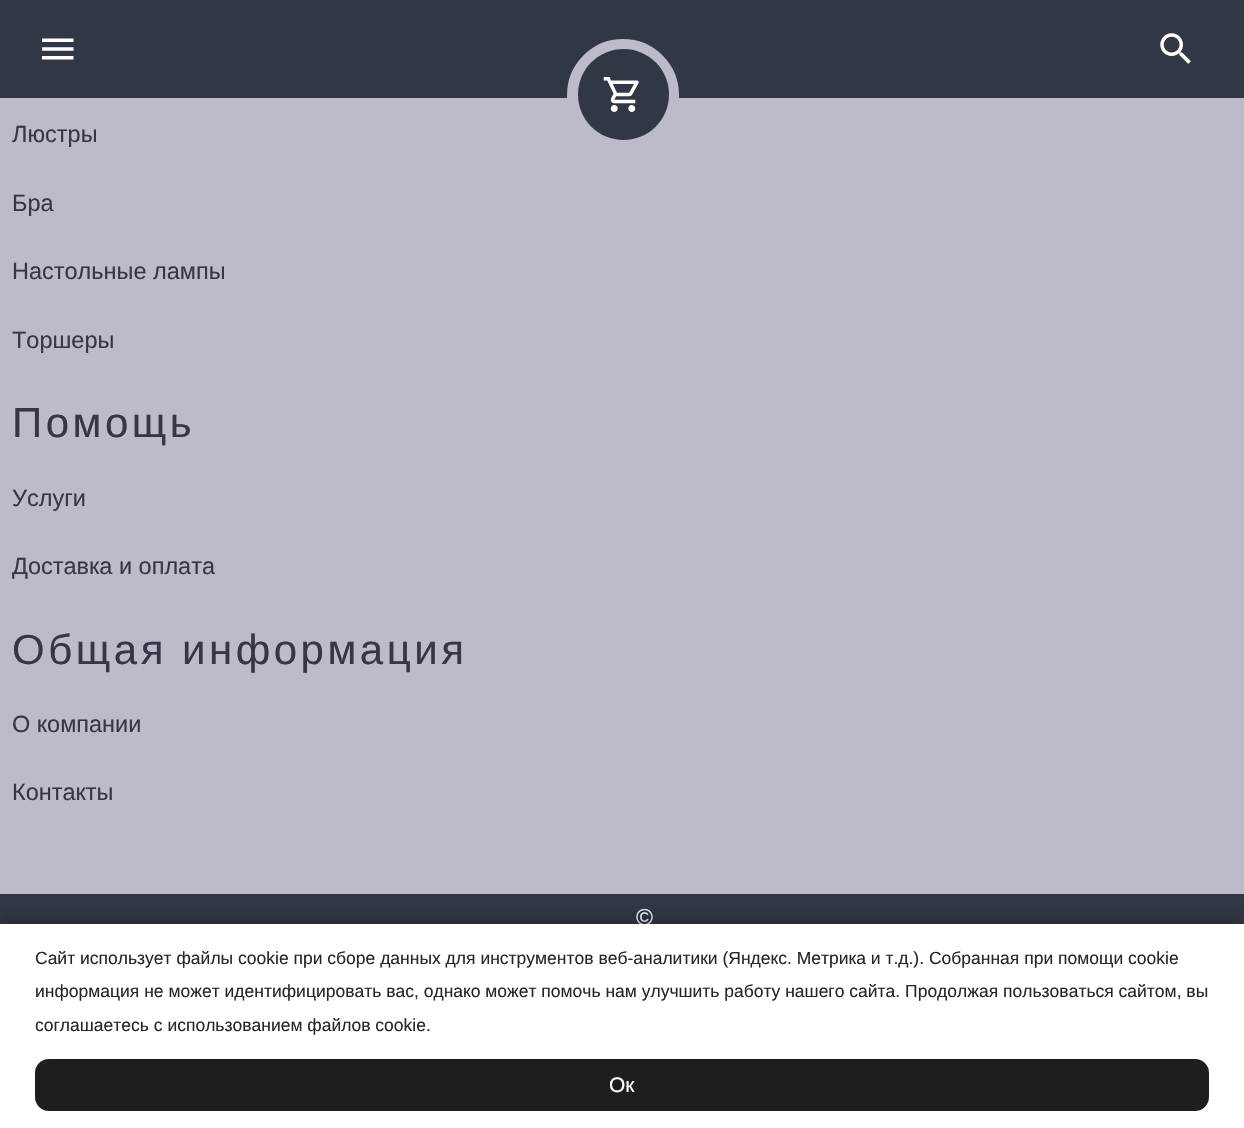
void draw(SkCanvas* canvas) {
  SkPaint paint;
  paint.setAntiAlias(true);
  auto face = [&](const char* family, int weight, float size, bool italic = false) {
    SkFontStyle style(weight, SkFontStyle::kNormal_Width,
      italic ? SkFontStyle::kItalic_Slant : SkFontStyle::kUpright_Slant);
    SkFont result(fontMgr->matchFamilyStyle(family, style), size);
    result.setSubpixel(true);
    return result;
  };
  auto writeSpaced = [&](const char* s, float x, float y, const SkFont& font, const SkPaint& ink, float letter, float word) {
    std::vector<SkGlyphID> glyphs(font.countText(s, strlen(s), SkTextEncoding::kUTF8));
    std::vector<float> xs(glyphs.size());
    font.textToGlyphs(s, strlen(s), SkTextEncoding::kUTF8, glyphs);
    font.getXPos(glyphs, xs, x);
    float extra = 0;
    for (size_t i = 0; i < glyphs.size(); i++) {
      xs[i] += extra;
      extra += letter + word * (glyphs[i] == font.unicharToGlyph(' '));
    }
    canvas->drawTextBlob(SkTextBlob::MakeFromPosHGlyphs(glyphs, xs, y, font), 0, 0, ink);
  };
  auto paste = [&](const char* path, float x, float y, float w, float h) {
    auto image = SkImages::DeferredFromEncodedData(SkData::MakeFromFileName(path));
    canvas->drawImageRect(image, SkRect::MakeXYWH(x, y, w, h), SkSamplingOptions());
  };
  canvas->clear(0xff313745);
  paint.setColor(0xffbbbbc9);
  canvas->drawRect(SkRect::MakeXYWH(0, 39, 1244, 855), paint);
  auto f0 = face("Liberation Sans", 400, 23.5f);
  paint.setColor(0xff353746);
  {
    const struct { const char* s; float x, y; } items[] = {
      {"Люстры", 12, 142},
      {"Бра", 12, 211},
      {"Настольные лампы", 12, 279},
      {"Торшеры", 12, 348},
    };
    for (auto [s, x, y] : items) {
      canvas->drawString(s, x, y, f0, paint);
    }
  }
  auto f1 = face("Liberation Sans", 400, 42);
  writeSpaced("Помощь", 12, 437, f1, paint, 3.5f, 0);
  canvas->drawString("Услуги", 12, 506, f0, paint);
  canvas->drawString("Доставка и оплата", 12, 574, f0, paint);
  writeSpaced("Общая информация", 12, 664, f1, paint, 3.5f, 0);
  canvas->drawString("О компании", 12, 732, f0, paint);
  canvas->drawString("Контакты", 12, 800, f0, paint);
  auto f2 = face("Liberation Sans", 400, 23);
  paint.setColor(0xffffffff);
  canvas->drawString("©", 636, 925, f2, paint);
  canvas->save();
  canvas->clipRect(SkRect::MakeXYWH(0, 0, 1244, 98));
  paint.setStroke(true);
  paint.setStrokeWidth(1736);
  paint.setColor(0xff313745);
  canvas->drawCircle(623, 95, 924, paint);
  canvas->restore();
  paint.setStroke(false);
  canvas->drawCircle(623.5f, 94.5f, 45.5f, paint);
  paste("img/3.png", 603, 77, 36, 35);
  paste("img/2.png", 1160, 33, 31, 31);
  paste("img/1.png", 42, 38, 32, 22);
  paint.setColor(0x33000000);
  paint.setMaskFilter(SkMaskFilter::MakeBlur(kNormal_SkBlurStyle, 7));
  canvas->drawRect(SkRect::MakeXYWH(0, 917, 1244, 205), paint);
  paint.setMaskFilter(nullptr);
  paint.setColor(0xffffffff);
  canvas->drawRect(SkRect::MakeXYWH(0, 924, 1244, 204), paint);
  auto f3 = face("Liberation Sans", 400, 17.5f);
  paint.setColor(0xff262626);
  {
    const struct { const char* s; float x, y; } items[] = {
      {"Сайт использует файлы cookie при сборе данных для инструментов веб-аналитики (Яндекс. Метрика и т.д.). Собранная при помощи cookie", 35, 964},
      {"информация не может идентифицировать вас, однако может помочь нам улучшить работу нашего сайта. Продолжая пользоваться сайтом, вы", 35, 997},
      {"соглашаетесь с использованием файлов cookie.", 35, 1031},
    };
    for (auto [s, x, y] : items) {
      canvas->drawString(s, x, y, f3, paint);
    }
  }
  paint.setColor(0xff1e1e1e);
  canvas->drawRoundRect(SkRect::MakeXYWH(35, 1059, 1174, 52), 14, 14, paint);
  auto f4 = face("Liberation Sans", 400, 21);
  paint.setColor(0xffffffff);
  canvas->drawString("Ок", 609, 1092, f4, paint);
}
